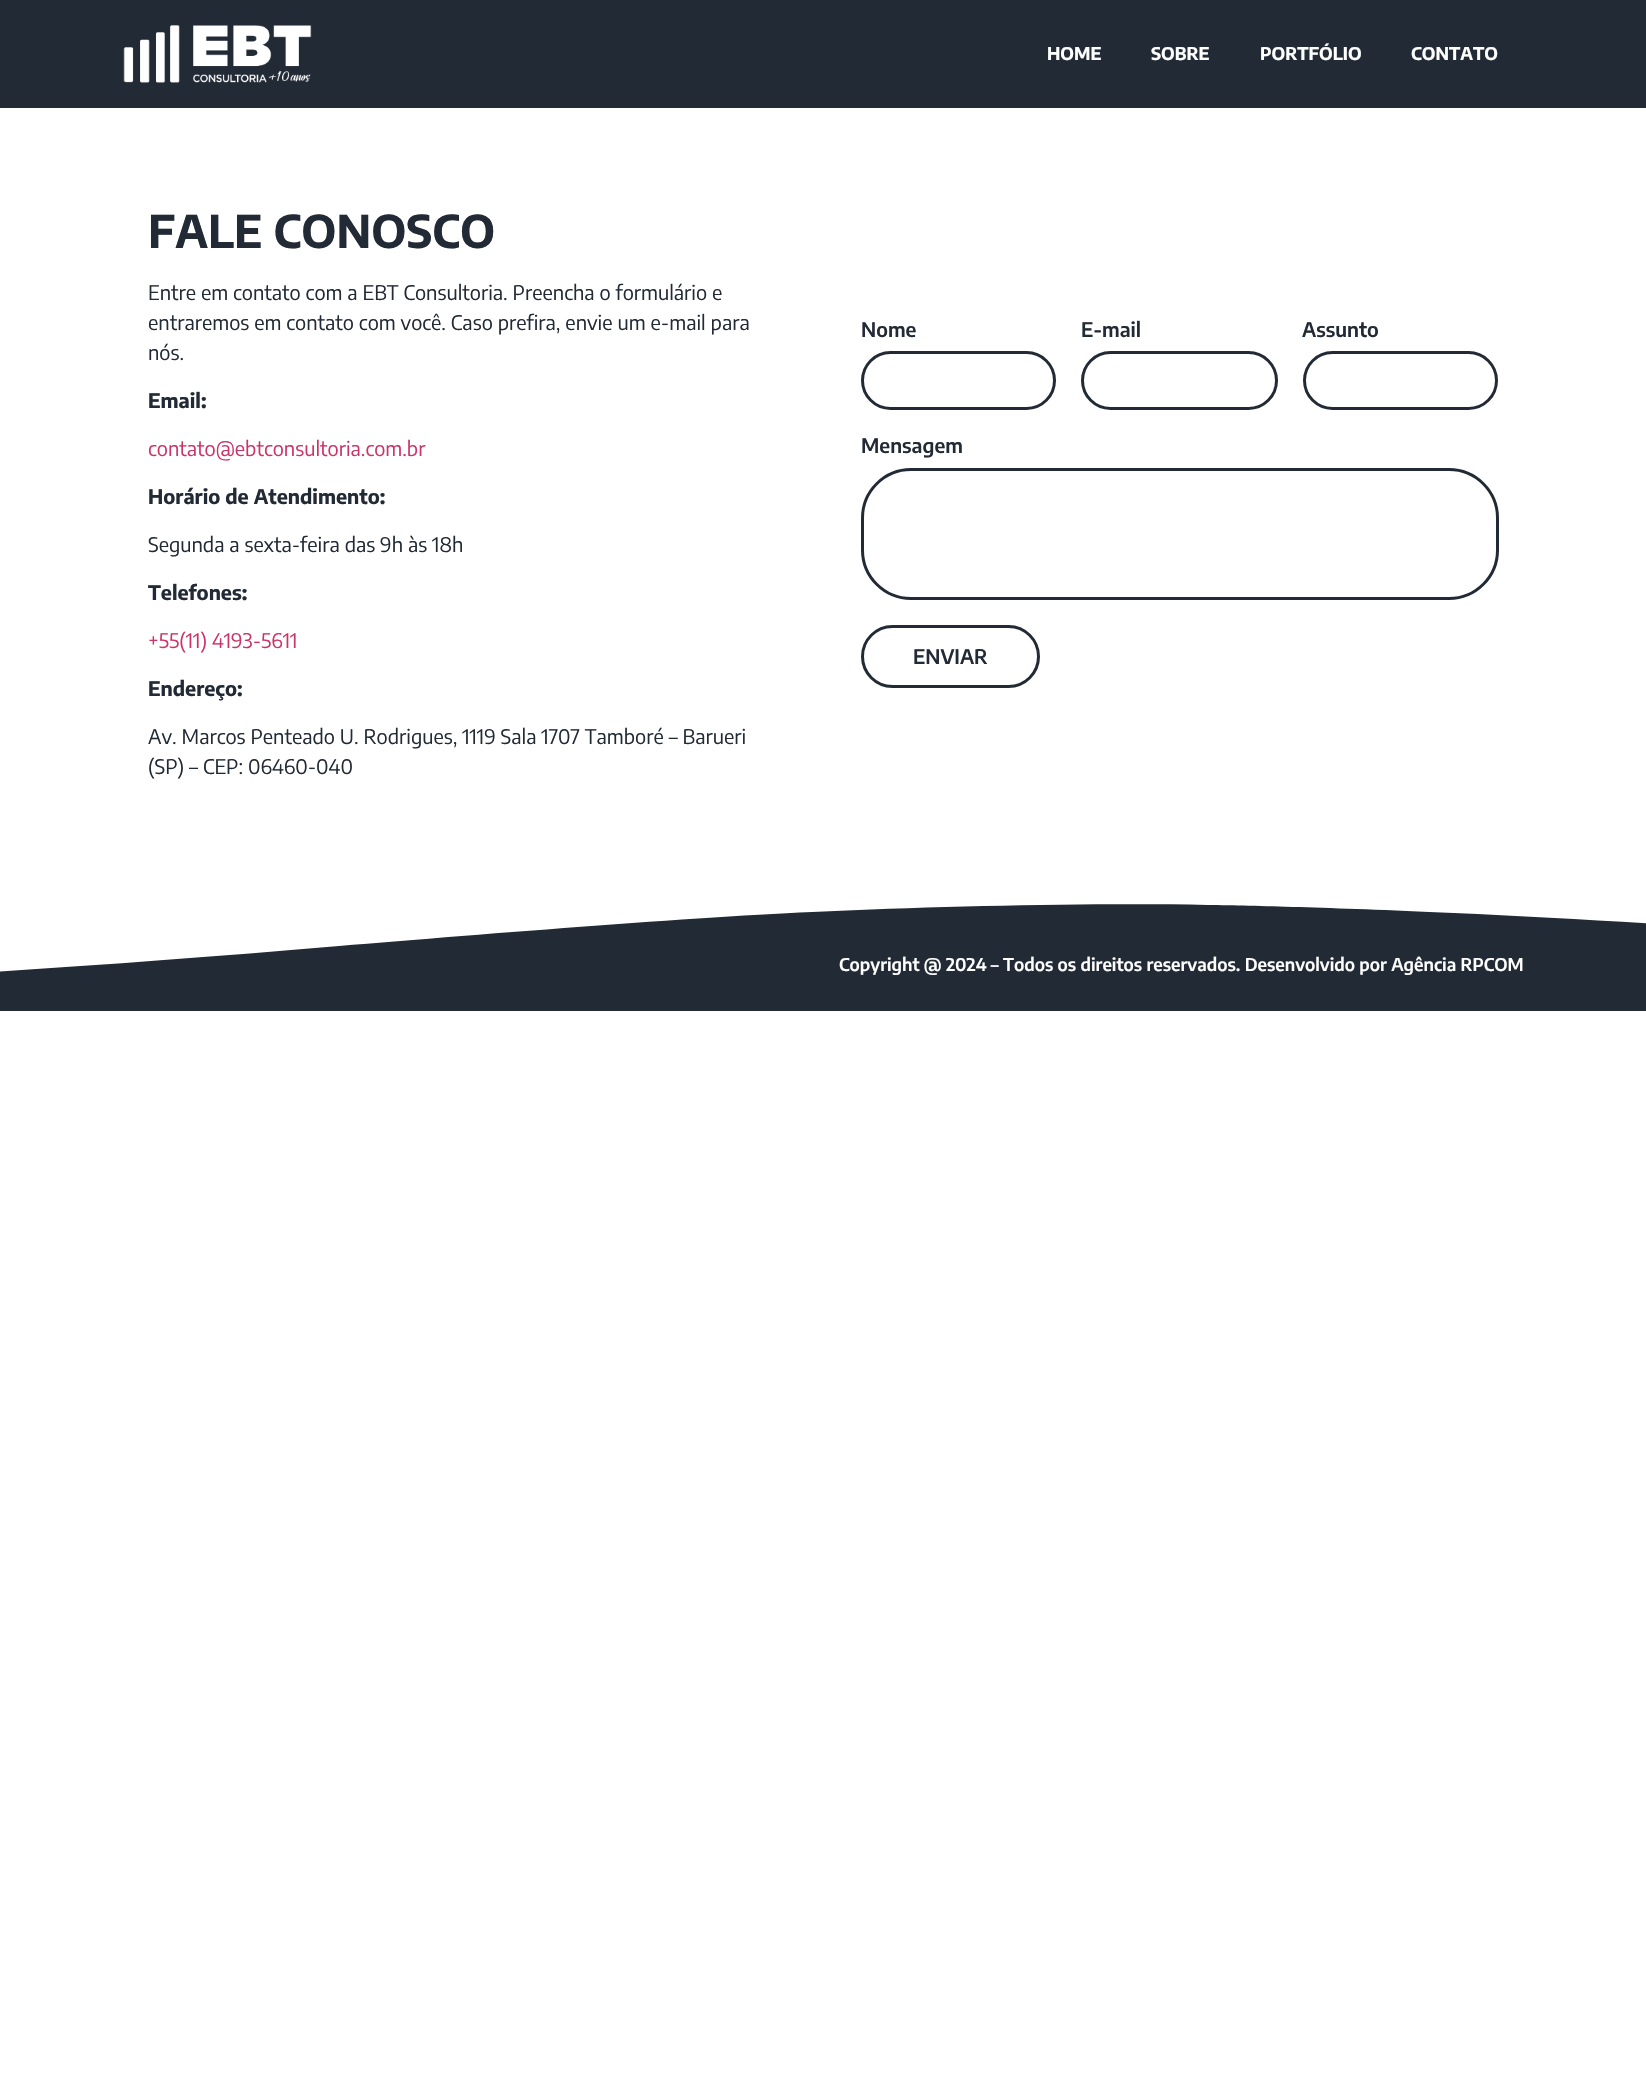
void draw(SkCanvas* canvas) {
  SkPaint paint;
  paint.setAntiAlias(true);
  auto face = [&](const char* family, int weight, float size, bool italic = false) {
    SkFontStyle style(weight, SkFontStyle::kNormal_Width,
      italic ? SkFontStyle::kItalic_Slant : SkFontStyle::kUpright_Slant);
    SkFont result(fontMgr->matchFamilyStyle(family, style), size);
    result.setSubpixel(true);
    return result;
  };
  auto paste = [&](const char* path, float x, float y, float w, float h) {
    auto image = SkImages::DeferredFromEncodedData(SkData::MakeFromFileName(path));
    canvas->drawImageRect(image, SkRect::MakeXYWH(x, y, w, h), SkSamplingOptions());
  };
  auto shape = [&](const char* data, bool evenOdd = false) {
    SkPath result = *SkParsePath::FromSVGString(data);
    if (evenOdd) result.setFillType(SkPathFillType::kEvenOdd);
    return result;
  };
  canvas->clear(0xffffffff);
  paint.setColor(0xff222a35);
  canvas->drawRect(SkRect::MakeXYWH(0, 0, 1646, 108), paint);
  paste("img/1.png", 123, 25, 189, 58);
  paint.setStroke(true);
  paint.setStrokeWidth(3);
  canvas->drawRoundRect(SkRect::MakeXYWH(862.5f, 352.5f, 192, 56), 28, 28, paint);
  canvas->drawRoundRect(SkRect::MakeXYWH(1082.5f, 352.5f, 194, 56), 28, 28, paint);
  canvas->drawRoundRect(SkRect::MakeXYWH(1304.5f, 352.5f, 192, 56), 28, 28, paint);
  canvas->drawRoundRect(SkRect::MakeXYWH(862.5f, 469.5f, 635, 129), 48.5f, 48.5f, paint);
  canvas->drawRoundRect(SkRect::MakeXYWH(862.5f, 626.5f, 176, 60), 30, 30, paint);
  paint.setStroke(false);
  canvas->drawRect(SkRect::MakeXYWH(0, 904, 1646, 107), paint);
  paint.setColor(0xffffffff);
  canvas->drawPath(shape("M1208 905C1097 903 954 906 835 911C719 915 485 934 339 946C-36 978-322 991-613 996C-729 998-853 999-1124 993C-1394 987-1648 968-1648 968V899H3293V929C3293 929 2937 962 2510 960C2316 959 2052 953 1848 937C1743 929 1590 919 1454 913C1320 907 1259 906 1208 905Z"), paint);
  auto f0 = face("Encode Sans Condensed", 700, 17.5f);
  {
    const struct { const char* s; float x, y; } items[] = {
      {"HOME", 1047, 60},
      {"SOBRE", 1151, 60},
      {"PORTFÓLIO", 1260, 60},
      {"CONTATO", 1411, 60},
    };
    for (auto [s, x, y] : items) {
      canvas->drawString(s, x, y, f0, paint);
    }
  }
  auto f1 = face("Encode Sans Condensed", 700, 45);
  paint.setColor(0xff222a35);
  canvas->drawString("FALE CONOSCO", 148, 248, f1, paint);
  auto f2 = face("Encode Sans Condensed", 400, 20);
  {
    const struct { const char* s; float x, y; } items[] = {
      {"Entre em contato com a EBT Consultoria. Preencha o formulário e", 148, 300},
      {"entraremos em contato com você. Caso prefira, envie um e-mail para", 148, 330},
      {"nós.", 148, 360},
    };
    for (auto [s, x, y] : items) {
      canvas->drawString(s, x, y, f2, paint);
    }
  }
  auto f3 = face("Encode Sans Condensed", 700, 20);
  canvas->drawString("Email:", 148, 408, f3, paint);
  paint.setColor(0xffcc3366);
  canvas->drawString("contato@ebtconsultoria.com.br", 148, 456, f2, paint);
  paint.setColor(0xff222a35);
  canvas->drawString("Horário de Atendimento:", 148, 504, f3, paint);
  canvas->drawString("Segunda a sexta-feira das 9h às 18h", 148, 552, f2, paint);
  canvas->drawString("Telefones:", 148, 600, f3, paint);
  paint.setColor(0xffcc3366);
  canvas->drawString("+55(11) 4193-5611", 148, 648, f2, paint);
  paint.setColor(0xff222a35);
  canvas->drawString("Endereço:", 148, 696, f3, paint);
  canvas->drawString("Av. Marcos Penteado U. Rodrigues, 1119 Sala 1707 Tamboré – Barueri", 148, 744, f2, paint);
  canvas->drawString("(SP) – CEP: 06460-040", 148, 774, f2, paint);
  auto f4 = face("Encode Sans Condensed", 600, 20);
  {
    const struct { const char* s; float x, y; } items[] = {
      {"Nome", 861, 337},
      {"E-mail", 1081, 337},
      {"Assunto", 1302, 337},
      {"Mensagem", 861, 453},
      {"ENVIAR", 913, 664},
    };
    for (auto [s, x, y] : items) {
      canvas->drawString(s, x, y, f4, paint);
    }
  }
  auto f5 = face("Encode Sans Condensed", 600, 17.5f);
  paint.setColor(0xffffffff);
  canvas->drawString("Copyright @ 2024 – Todos os direitos reservados. Desenvolvido por Agência RPCOM", 839, 971, f5, paint);
}
